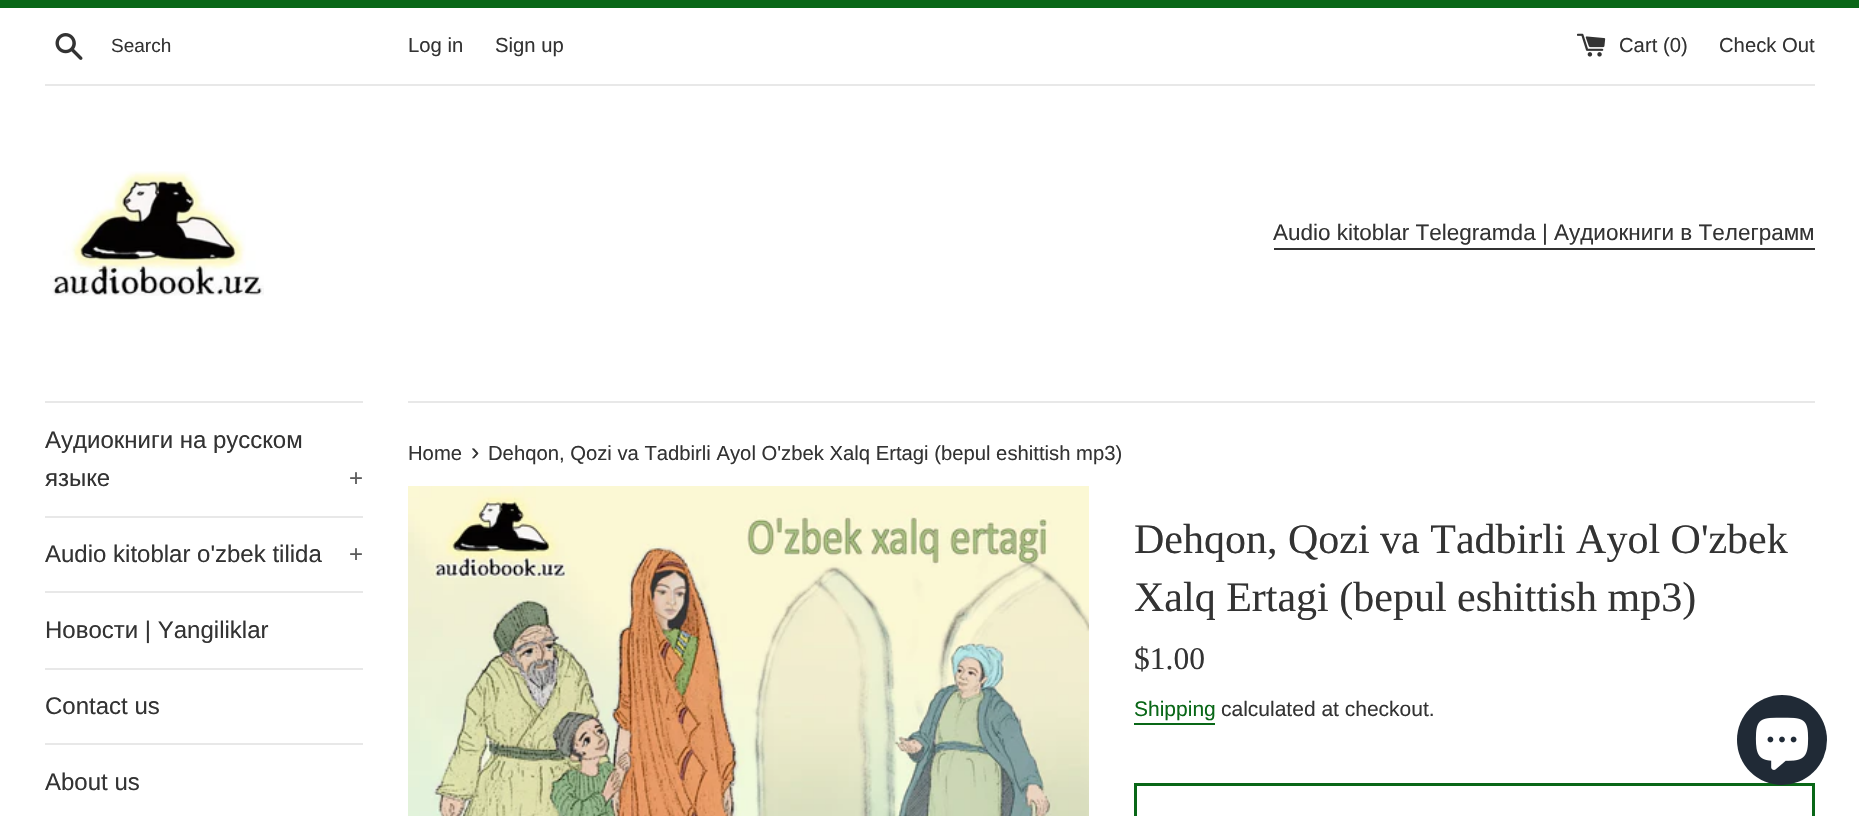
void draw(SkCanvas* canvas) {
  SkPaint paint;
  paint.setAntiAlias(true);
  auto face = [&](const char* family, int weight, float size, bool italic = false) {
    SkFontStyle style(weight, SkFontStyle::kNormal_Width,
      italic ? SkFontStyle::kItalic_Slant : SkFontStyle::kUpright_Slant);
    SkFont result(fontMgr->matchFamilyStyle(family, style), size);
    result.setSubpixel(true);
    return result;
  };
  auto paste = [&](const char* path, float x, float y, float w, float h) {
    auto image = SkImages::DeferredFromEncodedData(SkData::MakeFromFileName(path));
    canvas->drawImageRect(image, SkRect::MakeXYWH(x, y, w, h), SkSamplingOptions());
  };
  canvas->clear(0xffffffff);
  paint.setColor(0xff096717);
  canvas->drawRect(SkRect::MakeXYWH(0, 0, 1859, 8), paint);
  paste("img/1.png", 55, 33, 28, 27);
  paste("img/2.png", 1577, 33, 29, 24);
  paint.setColor(0xffe8e8e8);
  canvas->drawRect(SkRect::MakeXYWH(45, 84, 1770, 2), paint);
  paste("img/3.png", 50, 171, 214, 125);
  {
    const struct { float x, y, w, h; SkColor color; } items[] = {
      {1274, 248, 541, 2, 0xff333333},
      {45, 401, 318, 2, 0xffe8e8e8},
      {45, 516, 318, 2, 0xffe8e8e8},
      {45, 591, 318, 2, 0xffe8e8e8},
      {45, 668, 318, 2, 0xffe8e8e8},
      {45, 743, 318, 2, 0xffe8e8e8},
      {408, 401, 1407, 2, 0xffe8e8e8},
    };
    for (auto [x, y, w, h, color] : items) {
      paint.setColor(color);
      canvas->drawRect(SkRect::MakeXYWH(x, y, w, h), paint);
    }
  }
  paste("img/4.png", 408, 486, 681, 330);
  paint.setColor(0xff096717);
  canvas->drawRect(SkRect::MakeXYWH(1134, 723, 81, 2), paint);
  paint.setStroke(true);
  paint.setStrokeWidth(3);
  canvas->drawRect(SkRect::MakeXYWH(1135.5f, 784.5f, 678, 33), paint);
  paint.setStroke(false);
  paint.setColor(0xff202a36);
  canvas->drawCircle(1782, 740, 45, paint);
  paste("img/5.png", 1755, 717, 54, 53);
  auto f0 = face("Liberation Sans", 400, 19);
  paint.setColor(0xff333333);
  canvas->drawString("Search", 111, 52, f0, paint);
  auto f1 = face("Liberation Sans", 400, 20.25f);
  {
    const struct { const char* s; float x, y; } items[] = {
      {"Log in", 408, 52},
      {"Sign up", 495, 52},
      {"Cart (0)", 1619, 52},
      {"Check Out", 1719, 52},
    };
    for (auto [s, x, y] : items) {
      canvas->drawString(s, x, y, f1, paint);
    }
  }
  auto f2 = face("Liberation Sans", 400, 22.5f);
  canvas->drawString("Audio kitoblar Telegramda | Аудиокниги в Телеграмм", 1273, 240, f2, paint);
  auto f3 = face("Liberation Sans", 400, 24);
  canvas->drawString("Аудиокниги на русском", 45, 448, f3, paint);
  canvas->drawString("языке", 45, 486, f3, paint);
  paint.setColor(0xff5c5c5c);
  canvas->drawString("+", 349, 486, f3, paint);
  paint.setColor(0xff333333);
  canvas->drawString("Audio kitoblar o'zbek tilida", 45, 562, f3, paint);
  paint.setColor(0xff5c5c5c);
  canvas->drawString("+", 349, 562, f3, paint);
  paint.setColor(0xff333333);
  {
    const struct { const char* s; float x, y; } items[] = {
      {"Новости | Yangiliklar", 45, 638},
      {"Contact us", 45, 714},
      {"About us", 45, 790},
    };
    for (auto [s, x, y] : items) {
      canvas->drawString(s, x, y, f3, paint);
    }
  }
  canvas->drawString("Home", 408, 460, f1, paint);
  auto f4 = face("Liberation Sans", 400, 25);
  canvas->drawString("›", 471, 460, f4, paint);
  canvas->drawString("Dehqon, Qozi va Tadbirli Ayol O'zbek Xalq Ertagi (bepul eshittish mp3)", 488, 460, f1, paint);
  auto f5 = face("Liberation Serif", 400, 42);
  canvas->drawString("Dehqon, Qozi va Tadbirli Ayol O'zbek", 1134, 553, f5, paint);
  canvas->drawString("Xalq Ertagi (bepul eshittish mp3)", 1134, 611, f5, paint);
  auto f6 = face("Liberation Serif", 400, 31.5f);
  canvas->drawString("$1.00", 1134, 669, f6, paint);
  auto f7 = face("Liberation Sans", 400, 21);
  paint.setColor(0xff096717);
  canvas->drawString("Shipping", 1134, 716, f7, paint);
  paint.setColor(0xff333333);
  canvas->drawString("calculated at checkout.", 1221, 716, f7, paint);
}
